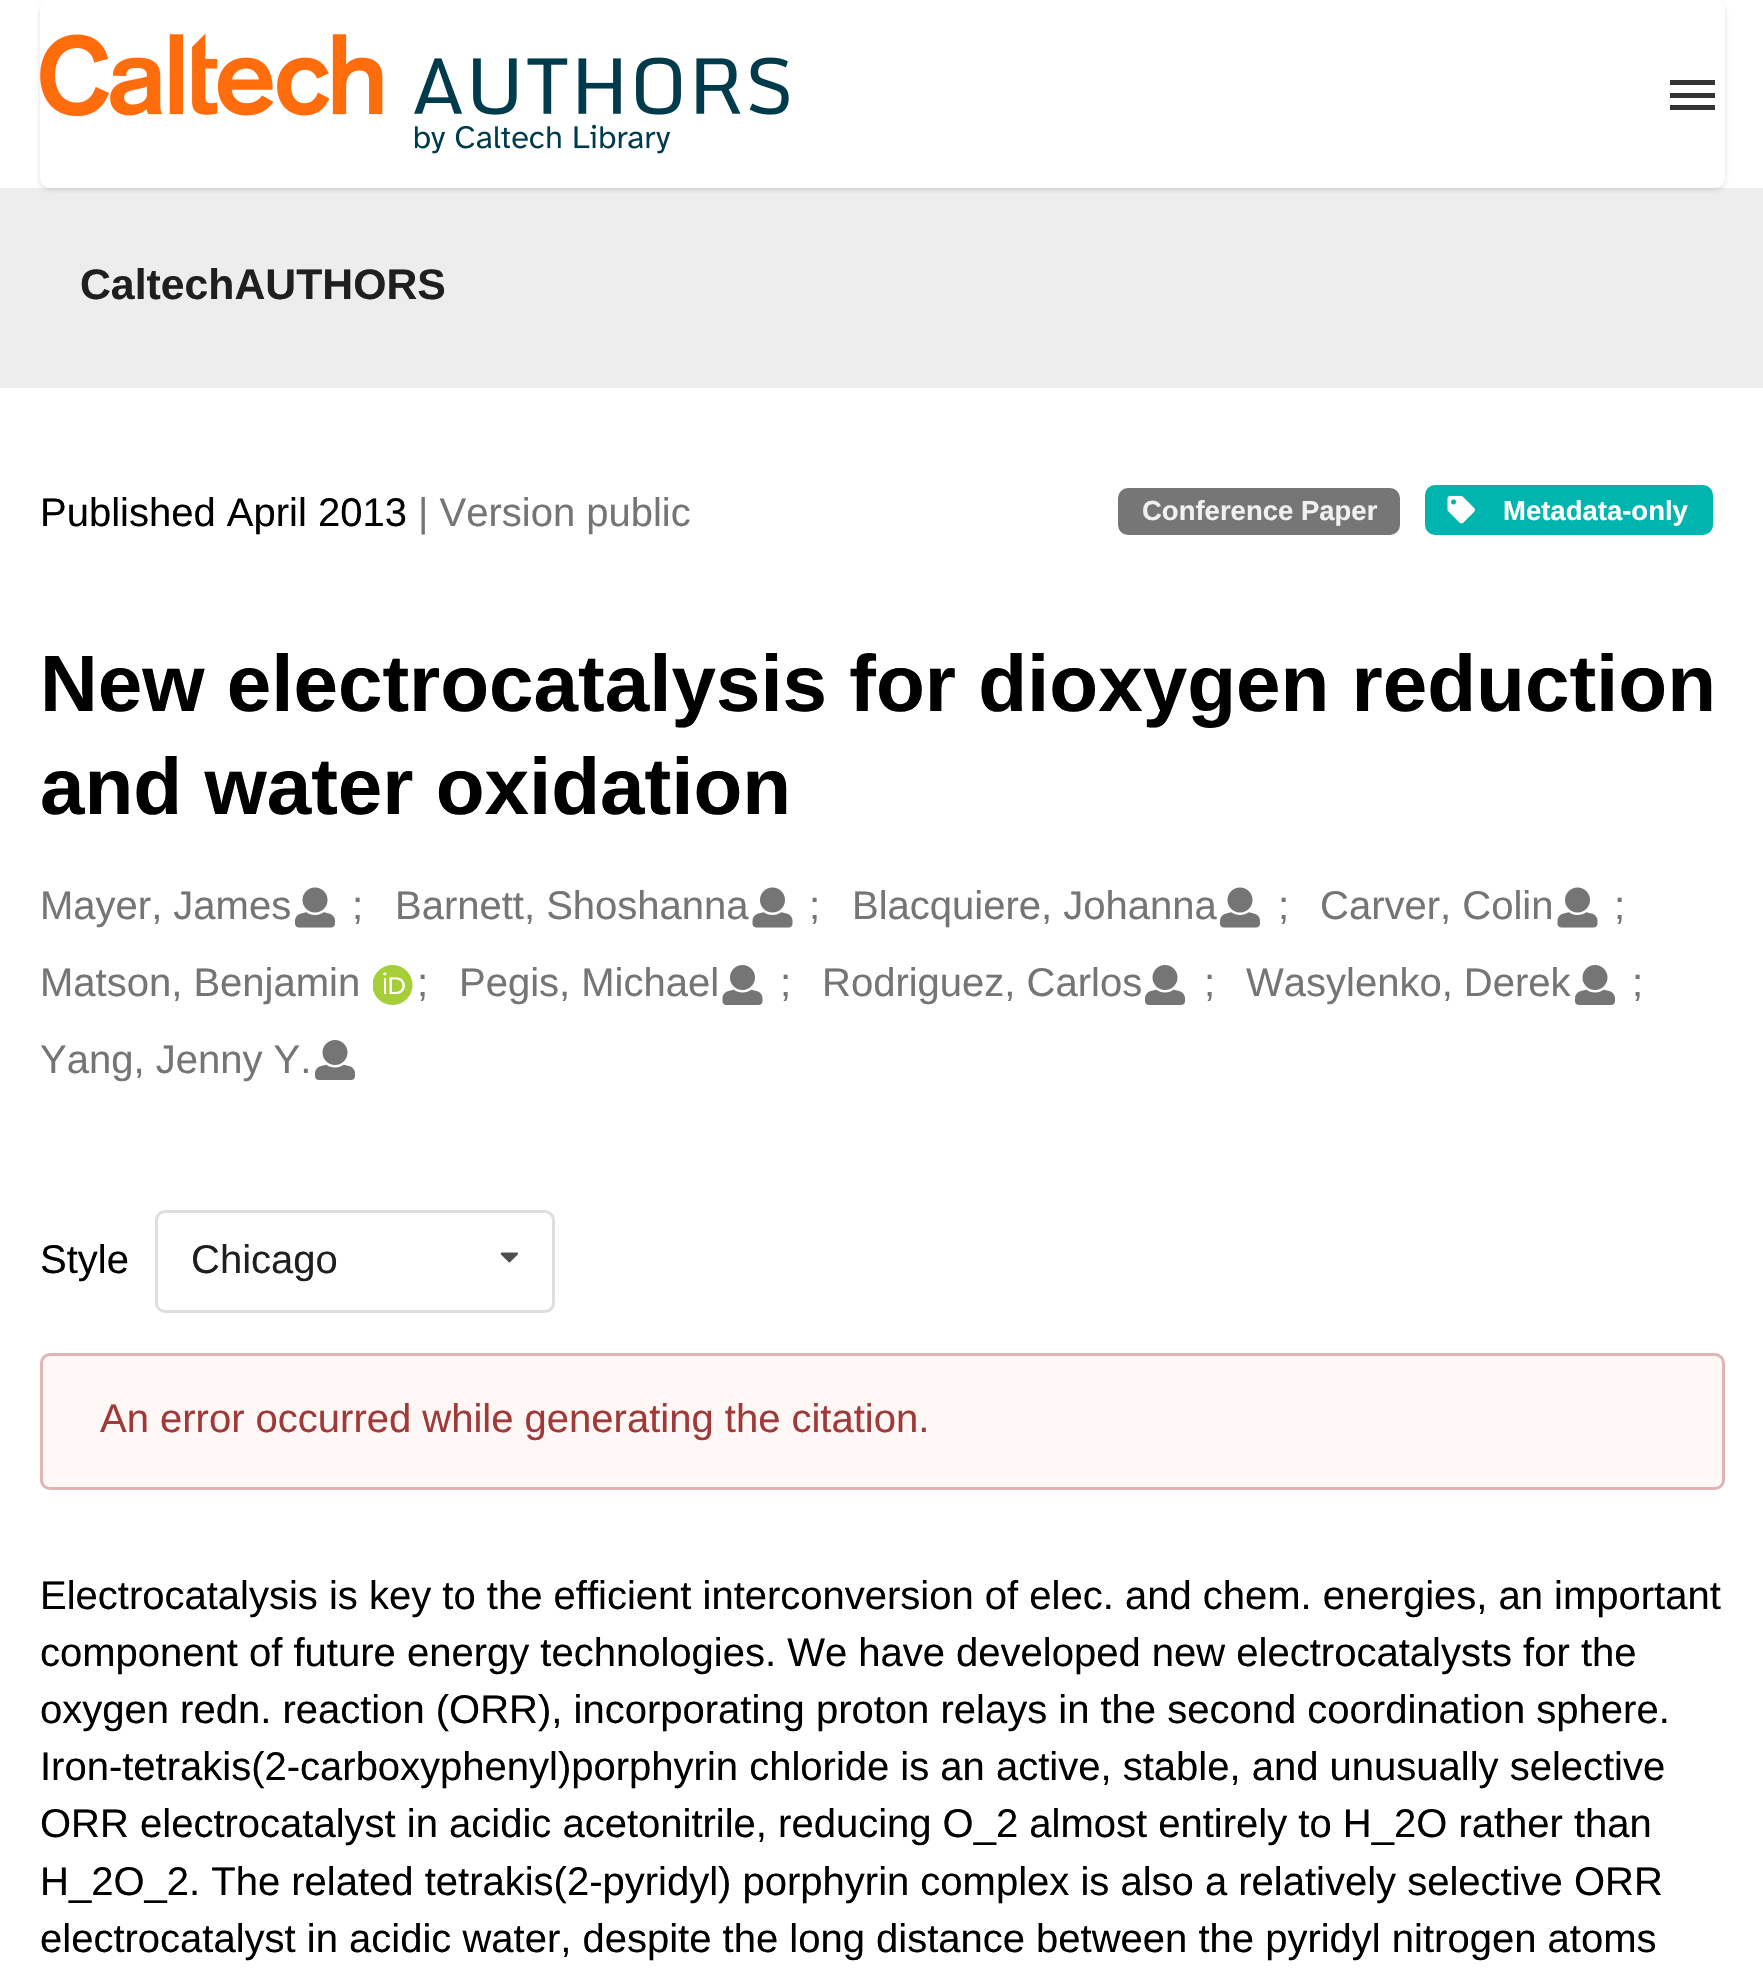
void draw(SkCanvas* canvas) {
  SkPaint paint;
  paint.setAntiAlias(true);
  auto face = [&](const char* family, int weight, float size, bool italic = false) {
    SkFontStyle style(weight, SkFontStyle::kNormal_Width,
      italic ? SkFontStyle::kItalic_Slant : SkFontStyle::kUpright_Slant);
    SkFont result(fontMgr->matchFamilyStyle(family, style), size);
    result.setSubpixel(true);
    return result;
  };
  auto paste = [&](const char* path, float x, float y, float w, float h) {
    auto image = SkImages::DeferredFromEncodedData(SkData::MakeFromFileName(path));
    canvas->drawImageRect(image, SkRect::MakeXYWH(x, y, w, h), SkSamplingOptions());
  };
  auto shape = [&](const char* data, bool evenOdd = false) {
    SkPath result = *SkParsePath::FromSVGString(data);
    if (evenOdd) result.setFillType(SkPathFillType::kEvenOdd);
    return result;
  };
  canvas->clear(0xffffffff);
  paint.setColor(0xffededed);
  canvas->drawRect(SkRect::MakeXYWH(0, 188, 1763, 200), paint);
  canvas->save();
  canvas->clipPath(shape("M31 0H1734V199H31ZM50 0H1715C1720.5 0 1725 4.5 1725 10V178C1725 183.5 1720.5 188 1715 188H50C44.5 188 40 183.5 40 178V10C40 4.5 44.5 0 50 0Z", true), true);
  paint.setColor(0x26222426);
  paint.setMaskFilter(SkMaskFilter::MakeBlur(kNormal_SkBlurStyle, 2.5f));
  canvas->drawRoundRect(SkRect::MakeXYWH(40, 3, 1685, 187), 10, 10, paint);
  paint.setMaskFilter(nullptr);
  canvas->restore();
  paste("img/1.png", 40, 33, 749, 121);
  {
    const struct { float x, y, w, h; SkColor color; } items[] = {
      {1670, 93, 45, 5, 0xff333333},
      {1670, 80, 45, 5, 0xff333333},
      {1670, 105, 45, 5, 0xff333333},
    };
    for (auto [x, y, w, h, color] : items) {
      paint.setColor(color);
      canvas->drawRect(SkRect::MakeXYWH(x, y, w, h), paint);
    }
  }
  paint.setColor(0xff767676);
  canvas->drawRoundRect(SkRect::MakeXYWH(1118, 488, 282, 47), 10, 10, paint);
  paint.setColor(0xff00b5ad);
  canvas->drawRoundRect(SkRect::MakeXYWH(1425, 485, 288, 50), 10, 10, paint);
  paste("img/2.png", 1447, 495, 28, 29);
  paste("img/3.png", 295, 887, 40, 41);
  paste("img/4.png", 752, 887, 41, 41);
  paste("img/3.png", 1220, 887, 40, 41);
  paste("img/4.png", 1557, 887, 41, 41);
  paste("img/5.png", 373, 965, 40, 40);
  paste("img/6.png", 722, 965, 41, 40);
  paste("img/7.png", 1145, 965, 40, 40);
  paste("img/7.png", 1575, 965, 40, 40);
  paste("img/7.png", 315, 1040, 40, 40);
  paint.setStroke(true);
  paint.setStrokeWidth(3);
  paint.setColor(0xffdedede);
  canvas->drawRoundRect(SkRect::MakeXYWH(156.5f, 1211.5f, 397, 100), 8.5f, 8.5f, paint);
  paste("img/8.png", 500, 1252, 18, 11);
  paint.setStroke(false);
  paint.setColor(0xfffff6f6);
  canvas->drawRoundRect(SkRect::MakeXYWH(41.5f, 1354.5f, 1682, 134), 8.5f, 8.5f, paint);
  paint.setStroke(true);
  paint.setColor(0xffe0b4b4);
  canvas->drawRoundRect(SkRect::MakeXYWH(41.5f, 1354.5f, 1682, 134), 8.5f, 8.5f, paint);
  auto f0 = face("Liberation Sans", 700, 42.75f);
  paint.setStroke(false);
  paint.setColor(0xff1f1f1f);
  canvas->drawString("CaltechAUTHORS", 80, 299, f0, paint);
  auto f1 = face("Liberation Sans", 400, 40);
  paint.setColor(0xff000000);
  canvas->drawString("Published April 2013", 40, 526, f1, paint);
  paint.setColor(0xff757575);
  canvas->drawString("| Version public", 418, 526, f1, paint);
  auto f2 = face("Liberation Sans", 700, 27.5f);
  paint.setColor(0xfff1f1f1);
  canvas->drawString("Conference Paper", 1142, 520, f2, paint);
  paint.setColor(0xffffffff);
  canvas->drawString("Metadata-only", 1503, 520, f2, paint);
  auto f3 = face("Liberation Sans", 700, 80);
  paint.setColor(0xff000000);
  canvas->drawString("New electrocatalysis for dioxygen reduction", 40, 711, f3, paint);
  canvas->drawString("and water oxidation", 40, 814, f3, paint);
  paint.setColor(0xff757575);
  {
    const struct { const char* s; float x, y; } items[] = {
      {"Mayer, James", 40, 919},
      {";", 352, 919},
      {"Barnett, Shoshanna", 395, 919},
      {";", 809, 919},
      {"Blacquiere, Johanna", 852, 919},
      {";", 1278, 919},
      {"Carver, Colin", 1320, 919},
      {";", 1614, 919},
      {"Matson, Benjamin", 40, 996},
      {";", 417, 996},
      {"Pegis, Michael", 459, 996},
      {";", 780, 996},
      {"Rodriguez, Carlos", 822, 996},
      {";", 1204, 996},
      {"Wasylenko, Derek", 1246, 996},
      {";", 1632, 996},
      {"Yang, Jenny Y.", 40, 1073},
    };
    for (auto [s, x, y] : items) {
      canvas->drawString(s, x, y, f1, paint);
    }
  }
  paint.setColor(0xff000000);
  canvas->drawString("Style", 40, 1273, f1, paint);
  paint.setColor(0xff1f1f1f);
  canvas->drawString("Chicago", 191, 1273, f1, paint);
  paint.setColor(0xff9f3a38);
  canvas->drawString("An error occurred while generating the citation.", 100, 1432, f1, paint);
  paint.setColor(0xff000000);
  {
    const struct { const char* s; float x, y; } items[] = {
      {"Electrocatalysis is key to the efficient interconversion of elec. and chem. energies, an important", 40, 1609},
      {"component of future energy technologies. We have developed new electrocatalysts for the", 40, 1666},
      {"oxygen redn. reaction (ORR), incorporating proton relays in the second coordination sphere.", 40, 1723},
      {"Iron-tetrakis(2-carboxyphenyl)porphyrin chloride is an active, stable, and unusually selective", 40, 1780},
      {"ORR electrocatalyst in acidic acetonitrile, reducing O_2 almost entirely to H_2O rather than", 40, 1837},
      {"H_2O_2. The related tetrakis(2-pyridyl) porphyrin complex is also a relatively selective ORR", 40, 1895},
      {"electrocatalyst in acidic water, despite the long distance between the pyridyl nitrogen atoms", 40, 1952},
    };
    for (auto [s, x, y] : items) {
      canvas->drawString(s, x, y, f1, paint);
    }
  }
}
